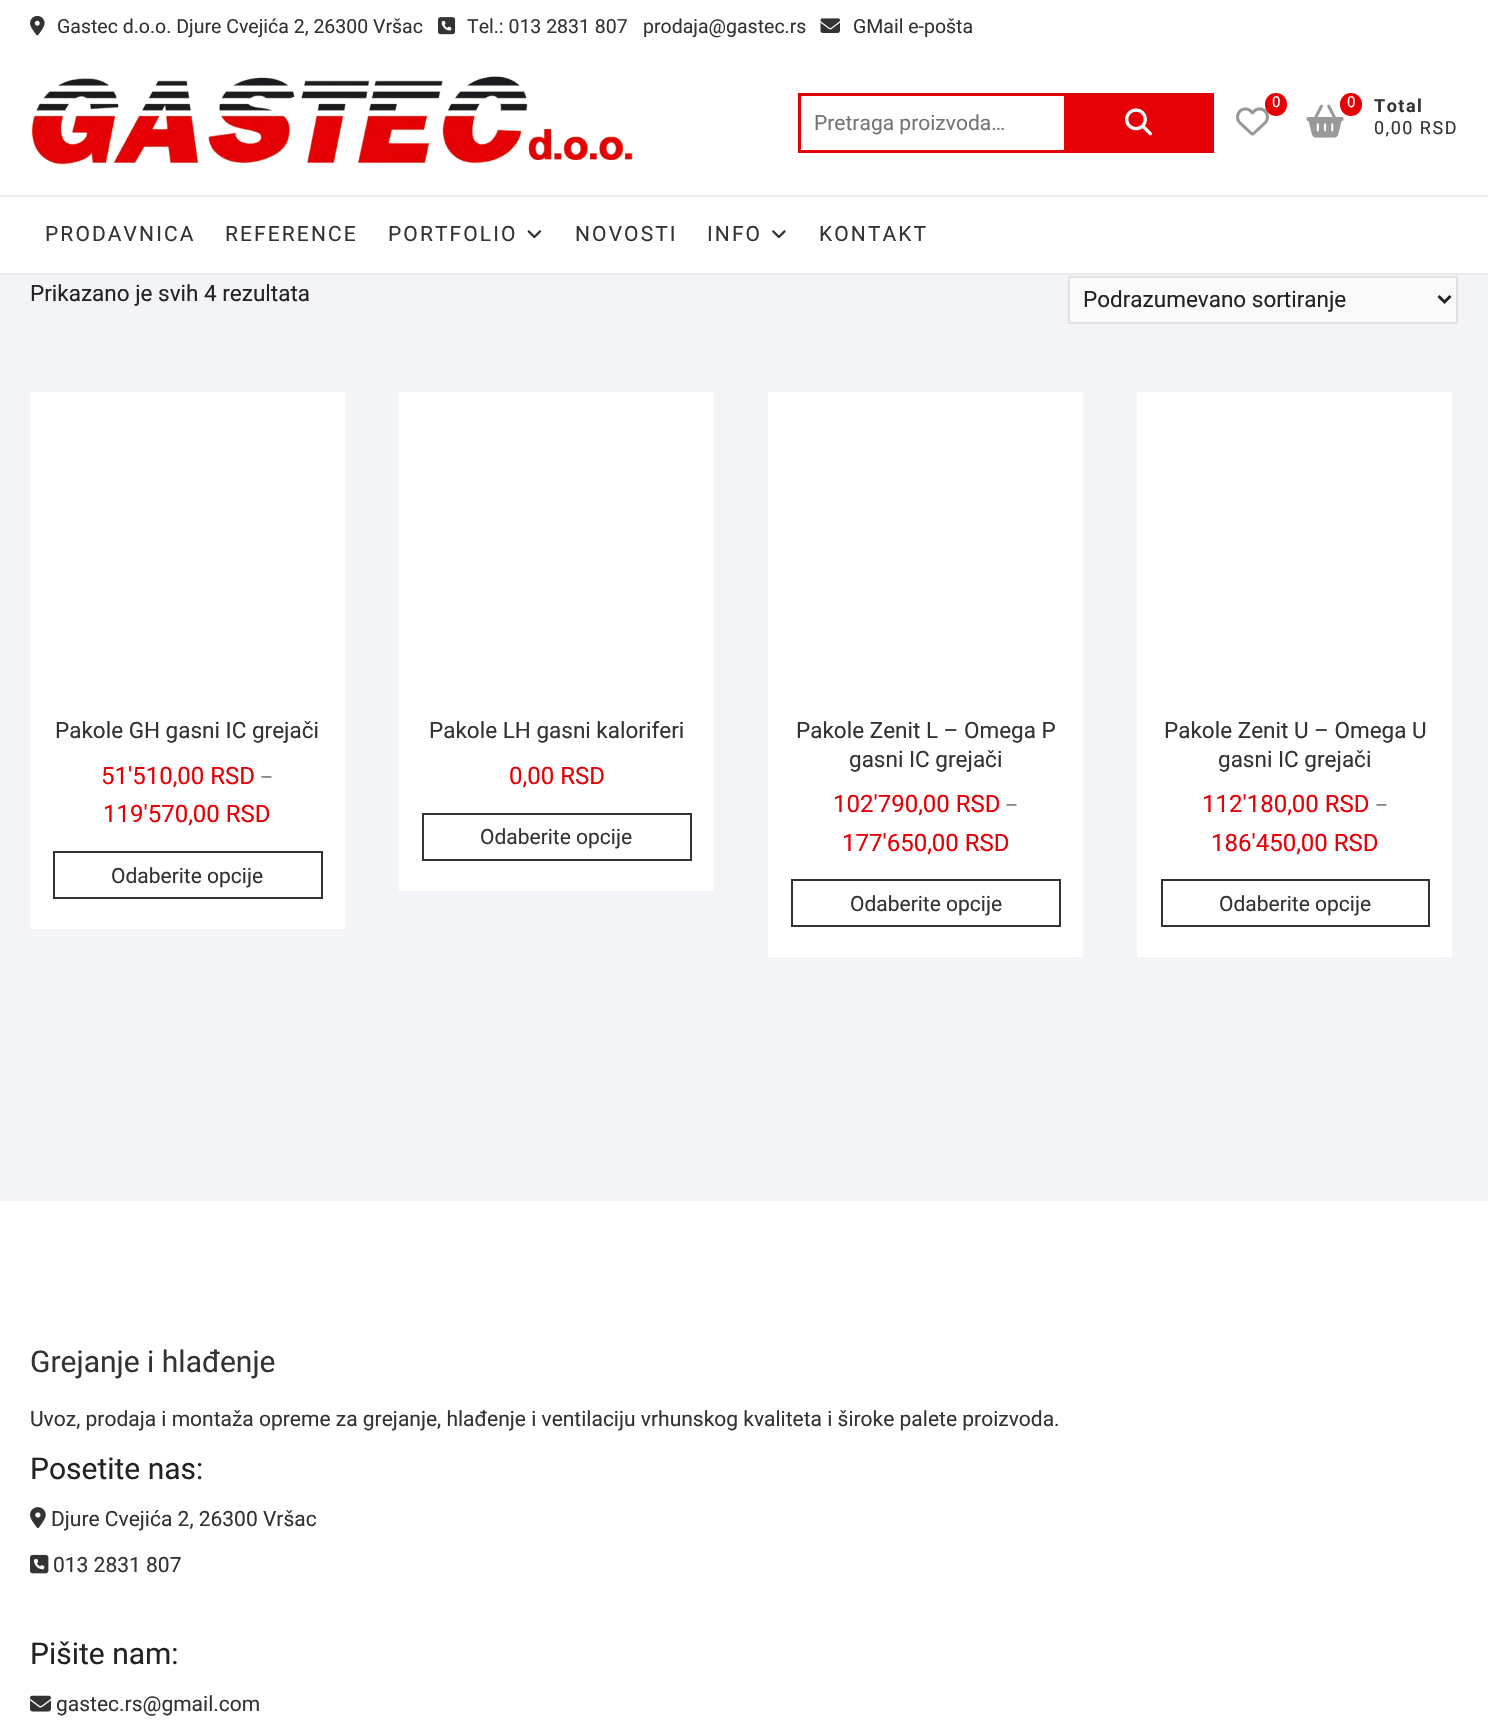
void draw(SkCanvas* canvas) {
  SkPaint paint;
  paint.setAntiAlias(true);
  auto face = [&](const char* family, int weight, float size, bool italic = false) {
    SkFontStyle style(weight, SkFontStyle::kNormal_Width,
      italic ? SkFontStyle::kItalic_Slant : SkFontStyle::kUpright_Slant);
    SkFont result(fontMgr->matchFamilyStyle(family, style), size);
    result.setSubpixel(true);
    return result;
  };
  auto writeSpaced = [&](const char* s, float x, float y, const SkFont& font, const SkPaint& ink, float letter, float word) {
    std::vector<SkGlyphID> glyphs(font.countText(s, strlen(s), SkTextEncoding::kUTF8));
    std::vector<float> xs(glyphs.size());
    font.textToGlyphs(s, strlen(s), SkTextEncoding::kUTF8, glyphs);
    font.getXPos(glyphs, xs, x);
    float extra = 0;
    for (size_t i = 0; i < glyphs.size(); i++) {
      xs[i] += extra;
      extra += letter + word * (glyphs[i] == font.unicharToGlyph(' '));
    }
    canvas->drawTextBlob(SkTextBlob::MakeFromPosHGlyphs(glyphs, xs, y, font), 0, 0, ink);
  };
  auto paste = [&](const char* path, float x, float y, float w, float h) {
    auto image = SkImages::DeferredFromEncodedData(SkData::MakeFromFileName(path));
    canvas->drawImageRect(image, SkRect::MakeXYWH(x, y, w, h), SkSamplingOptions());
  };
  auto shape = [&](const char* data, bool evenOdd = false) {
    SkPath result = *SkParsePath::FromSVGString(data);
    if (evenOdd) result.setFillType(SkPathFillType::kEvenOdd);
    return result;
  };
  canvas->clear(0xfff3f4f8);
  paint.setColor(0xffffffff);
  canvas->drawRect(SkRect::MakeXYWH(0, 0, 1488, 273), paint);
  paste("img/1.png", 30, 15, 15, 21);
  paste("img/2.png", 438, 17, 18, 18);
  paste("img/3.png", 820, 18, 20, 15);
  paste("img/4.png", 32, 76, 601, 89);
  {
    const struct { float x, y, w, h; SkColor color; } items[] = {
      {798, 93, 266, 3, 0xffe50005},
      {798, 150, 266, 3, 0xffe50005},
      {798, 93, 3, 60, 0xffe50005},
      {1064, 93, 150, 60, 0xffe50005},
    };
    for (auto [x, y, w, h, color] : items) {
      paint.setColor(color);
      canvas->drawRect(SkRect::MakeXYWH(x, y, w, h), paint);
    }
  }
  paste("img/5.png", 1125, 108, 27, 28);
  paste("img/6.png", 1236, 107, 33, 29);
  canvas->drawRoundRect(SkRect::MakeXYWH(1265, 93, 22, 23), 11, 11, paint);
  paste("img/7.png", 1306, 104, 38, 34);
  canvas->drawRoundRect(SkRect::MakeXYWH(1340, 93, 22, 23), 11, 11, paint);
  paint.setColor(0xffebebeb);
  canvas->drawRect(SkRect::MakeXYWH(0, 195, 1488, 2), paint);
  canvas->drawRect(SkRect::MakeXYWH(0, 273, 1488, 2), paint);
  paste("img/8.png", 527, 230, 15, 9);
  paste("img/9.png", 772, 230, 14, 9);
  paint.setColor(0xfffafafa);
  canvas->drawRect(SkRect::MakeXYWH(1069, 277, 388, 46), paint);
  paint.setStroke(true);
  paint.setStrokeWidth(2);
  paint.setColor(0xffe1e1e1);
  canvas->drawRect(SkRect::MakeXYWH(1069, 277, 388, 46), paint);
  paint.setStrokeWidth(3);
  paint.setColor(0xff222222);
  canvas->drawPath(shape("M1438.5 296L1444.5 302L1450.5 296"), paint);
  paint.setStroke(false);
  paint.setColor(0xffffffff);
  canvas->drawRect(SkRect::MakeXYWH(30, 392, 315, 537), paint);
  paint.setStroke(true);
  paint.setStrokeWidth(2);
  paint.setColor(0xff333333);
  canvas->drawRect(SkRect::MakeXYWH(54, 852, 268, 46), paint);
  paint.setStroke(false);
  paint.setColor(0xffffffff);
  canvas->drawRect(SkRect::MakeXYWH(399, 392, 315, 499), paint);
  paint.setStroke(true);
  paint.setColor(0xff333333);
  canvas->drawRect(SkRect::MakeXYWH(423, 814, 268, 46), paint);
  paint.setStroke(false);
  paint.setColor(0xffffffff);
  canvas->drawRect(SkRect::MakeXYWH(768, 392, 315, 565), paint);
  paint.setStroke(true);
  paint.setColor(0xff333333);
  canvas->drawRect(SkRect::MakeXYWH(792, 880, 268, 46), paint);
  paint.setStroke(false);
  paint.setColor(0xffffffff);
  canvas->drawRect(SkRect::MakeXYWH(1137, 392, 315, 565), paint);
  paint.setStroke(true);
  paint.setColor(0xff333333);
  canvas->drawRect(SkRect::MakeXYWH(1162, 880, 267, 46), paint);
  paint.setStroke(false);
  paint.setColor(0xffffffff);
  canvas->drawRect(SkRect::MakeXYWH(0, 1201, 1488, 534), paint);
  paint.setColor(0xfff2f2f2);
  canvas->drawRect(SkRect::MakeXYWH(0, 1199, 1488, 2), paint);
  paste("img/10.png", 30, 1507, 16, 22);
  paste("img/11.png", 30, 1554, 19, 20);
  paste("img/12.png", 30, 1695, 21, 17);
  auto f0 = face("Roboto", 400, 19.5f);
  paint.setColor(0xff333333);
  {
    const struct { const char* s; float x, y; } items[] = {
      {"Gastec d.o.o. Djure Cvejića 2, 26300 Vršac", 57, 33},
      {"Tel.: 013 2831 807", 467, 33},
      {"prodaja@gastec.rs", 643, 33},
      {"GMail e-pošta", 853, 33},
    };
    for (auto [s, x, y] : items) {
      canvas->drawString(s, x, y, f0, paint);
    }
  }
  auto f1 = face("Roboto", 400, 21);
  paint.setColor(0xff757575);
  canvas->drawString("Pretraga proizvoda…", 814, 130, f1, paint);
  auto f2 = face("Roboto", 400, 15);
  paint.setColor(0xffffffff);
  canvas->drawString("0", 1272, 107, f2, paint);
  canvas->drawString("0", 1347, 107, f2, paint);
  auto f3 = face("Roboto", 700, 18);
  paint.setColor(0xff333333);
  writeSpaced("Total", 1374, 112, f3, paint, 1.5f, 0);
  auto f4 = face("Roboto", 400, 18);
  writeSpaced("0,00 RSD", 1374, 134, f4, paint, 1.5f, 0);
  {
    const struct { const char* s; float x, y; } items[] = {
      {"PRODAVNICA", 45, 241},
      {"REFERENCE", 225, 241},
      {"PORTFOLIO", 388, 241},
      {"NOVOSTI", 575, 241},
      {"INFO", 707, 241},
      {"KONTAKT", 819, 241},
    };
    for (auto [s, x, y] : items) {
      writeSpaced(s, x, y, f1, paint, 2.1f, 0);
    }
  }
  auto f5 = face("Roboto", 400, 22.5f);
  paint.setColor(0xff222222);
  canvas->drawString("Prikazano je svih 4 rezultata", 30, 301, f5, paint);
  canvas->drawString("Podrazumevano sortiranje", 1083, 307, f5, paint);
  paint.setColor(0xff333333);
  canvas->drawString("Pakole GH gasni IC grejači", 55, 738, f5, paint);
  auto f6 = face("Roboto", 400, 24);
  paint.setColor(0xffe50005);
  canvas->drawString("51'510,00 RSD", 101, 784, f6, paint);
  auto f7 = face("Roboto", 400, 20);
  paint.setColor(0xff757575);
  canvas->drawString("–", 260, 784, f7, paint);
  paint.setColor(0xffe50005);
  canvas->drawString("119'570,00 RSD", 103, 822, f6, paint);
  paint.setColor(0xff333333);
  canvas->drawString("Odaberite opcije", 111, 883, f1, paint);
  canvas->drawString("Pakole LH gasni kaloriferi", 429, 738, f5, paint);
  paint.setColor(0xffe50005);
  canvas->drawString("0,00 RSD", 509, 784, f6, paint);
  paint.setColor(0xff333333);
  canvas->drawString("Odaberite opcije", 480, 844, f1, paint);
  canvas->drawString("Pakole Zenit L – Omega P", 796, 738, f5, paint);
  canvas->drawString("gasni IC grejači", 849, 767, f5, paint);
  paint.setColor(0xffe50005);
  canvas->drawString("102'790,00 RSD", 833, 812, f6, paint);
  paint.setColor(0xff757575);
  canvas->drawString("–", 1005, 812, f7, paint);
  paint.setColor(0xffe50005);
  canvas->drawString("177'650,00 RSD", 842, 851, f6, paint);
  paint.setColor(0xff333333);
  canvas->drawString("Odaberite opcije", 850, 911, f1, paint);
  canvas->drawString("Pakole Zenit U – Omega U", 1164, 738, f5, paint);
  canvas->drawString("gasni IC grejači", 1218, 767, f5, paint);
  paint.setColor(0xffe50005);
  canvas->drawString("112'180,00 RSD", 1202, 812, f6, paint);
  paint.setColor(0xff757575);
  canvas->drawString("–", 1375, 812, f7, paint);
  paint.setColor(0xffe50005);
  canvas->drawString("186'450,00 RSD", 1211, 851, f6, paint);
  paint.setColor(0xff333333);
  canvas->drawString("Odaberite opcije", 1219, 911, f1, paint);
  auto f8 = face("Roboto", 400, 30);
  canvas->drawString("Grejanje i hlađenje", 30, 1372, f8, paint);
  canvas->drawString("Uvoz, prodaja i montaža opreme za grejanje, hlađenje i ventilaciju vrhunskog kvaliteta i široke palete proizvoda.", 30, 1426, f1, paint);
  paint.setColor(0xff222222);
  canvas->drawString("Posetite nas:", 30, 1479, f8, paint);
  paint.setColor(0xff333333);
  canvas->drawString("Djure Cvejića 2, 26300 Vršac", 51, 1526, f1, paint);
  canvas->drawString("013 2831 807", 53, 1572, f1, paint);
  paint.setColor(0xff222222);
  canvas->drawString("Pišite nam:", 30, 1664, f8, paint);
  paint.setColor(0xff333333);
  canvas->drawString("gastec.rs@gmail.com", 56, 1711, f1, paint);
}
